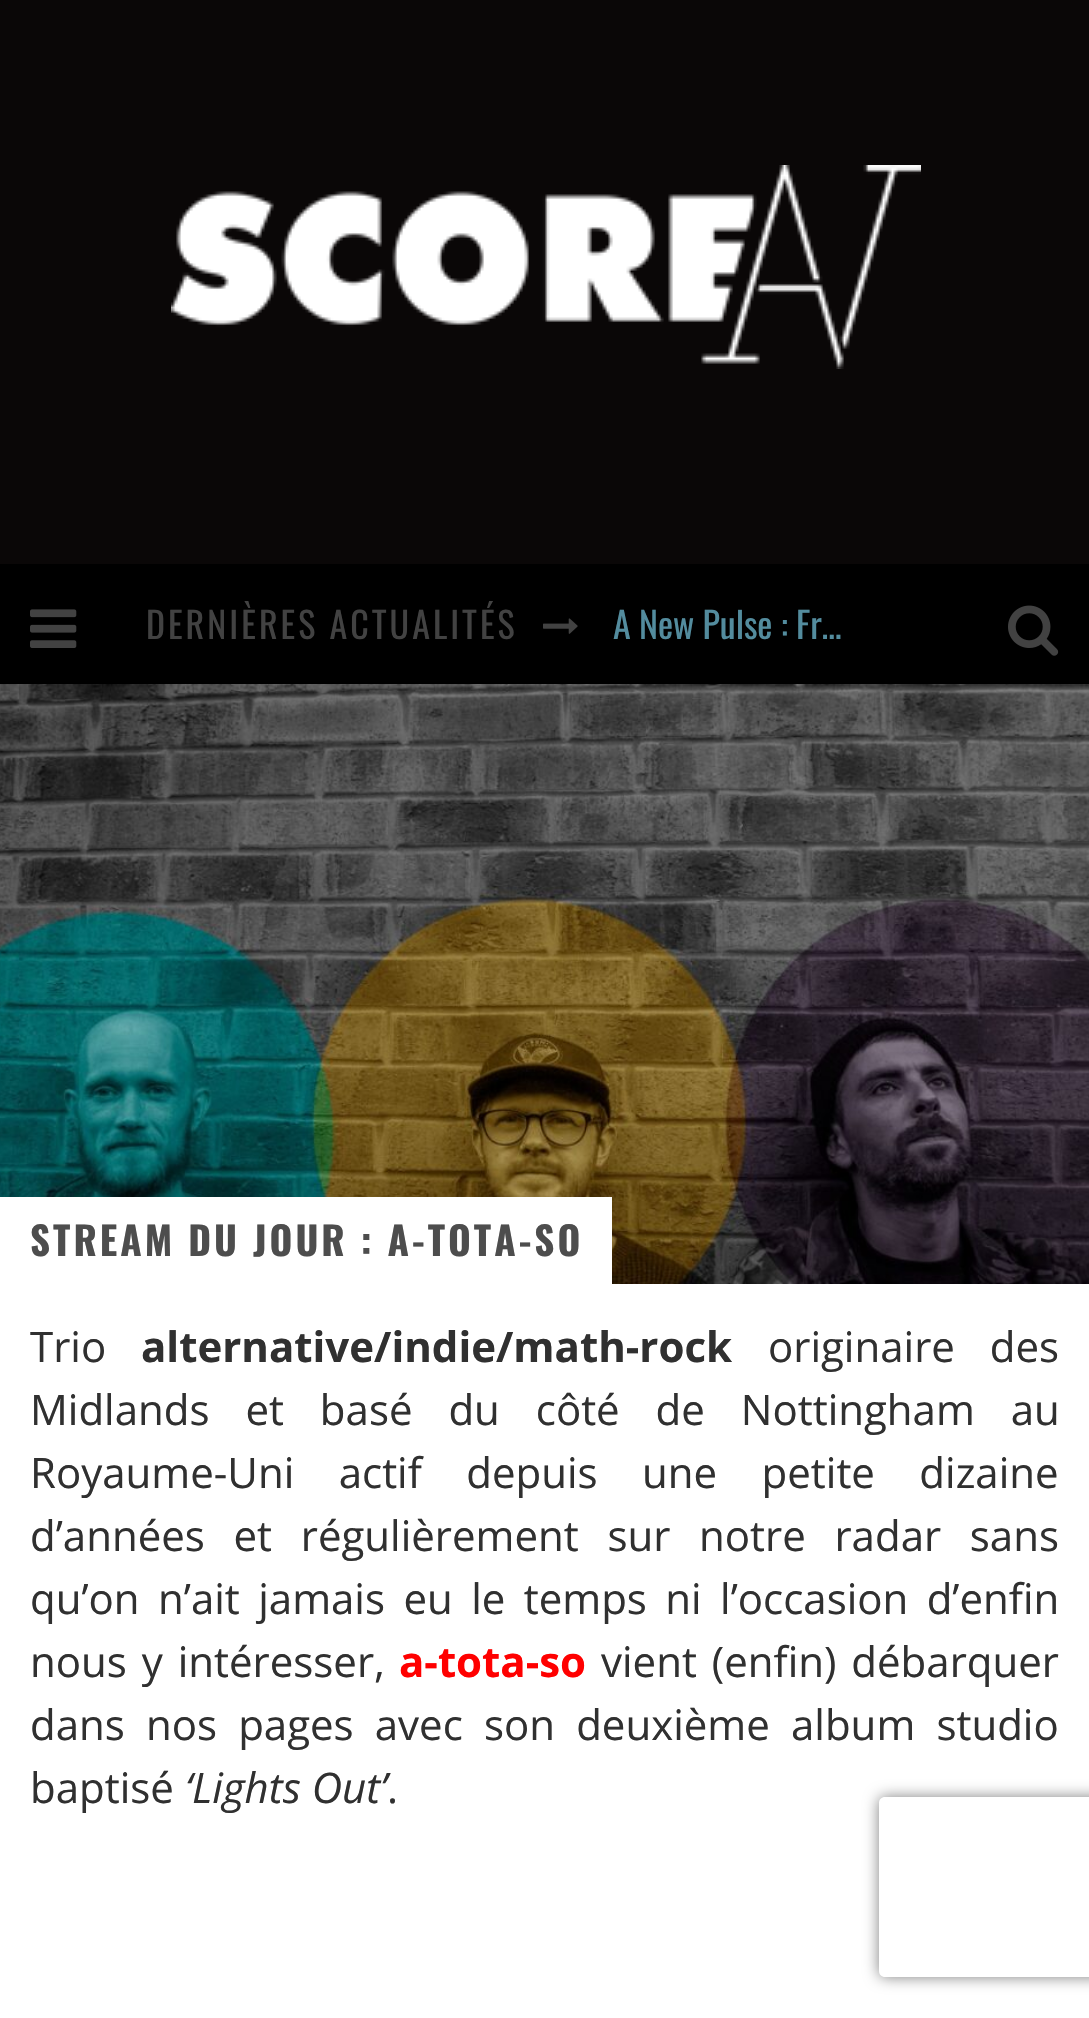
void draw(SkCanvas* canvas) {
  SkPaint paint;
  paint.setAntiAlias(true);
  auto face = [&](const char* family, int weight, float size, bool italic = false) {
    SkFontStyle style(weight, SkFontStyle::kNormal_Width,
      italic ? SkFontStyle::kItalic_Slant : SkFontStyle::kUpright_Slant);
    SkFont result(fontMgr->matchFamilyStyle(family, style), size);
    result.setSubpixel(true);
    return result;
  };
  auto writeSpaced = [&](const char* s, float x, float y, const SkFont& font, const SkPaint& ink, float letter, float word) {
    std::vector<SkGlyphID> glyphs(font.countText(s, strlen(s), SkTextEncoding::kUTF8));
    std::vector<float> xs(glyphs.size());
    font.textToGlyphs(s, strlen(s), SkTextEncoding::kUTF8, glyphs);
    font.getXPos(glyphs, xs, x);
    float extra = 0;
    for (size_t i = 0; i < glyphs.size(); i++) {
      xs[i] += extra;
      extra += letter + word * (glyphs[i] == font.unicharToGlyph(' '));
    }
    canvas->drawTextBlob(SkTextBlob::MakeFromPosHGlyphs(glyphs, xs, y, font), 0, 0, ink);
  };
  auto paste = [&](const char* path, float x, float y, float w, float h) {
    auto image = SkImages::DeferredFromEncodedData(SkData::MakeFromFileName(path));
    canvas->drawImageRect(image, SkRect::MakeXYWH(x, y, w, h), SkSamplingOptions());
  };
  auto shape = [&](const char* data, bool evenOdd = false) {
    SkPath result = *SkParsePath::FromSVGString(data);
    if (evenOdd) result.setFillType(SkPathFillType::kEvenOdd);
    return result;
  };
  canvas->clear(0xff0a0707);
  paste("img/1.png", 171, 165, 750, 204);
  paint.setColor(0xff000000);
  canvas->drawRect(SkRect::MakeXYWH(0, 564, 1089, 120), paint);
  paste("img/2.png", 30, 609, 47, 39);
  paste("img/3.png", 543, 618, 35, 16);
  paste("img/4.png", 1008, 605, 51, 51);
  paste("img/5.png", 0, 684, 1089, 600);
  paint.setColor(0xffffffff);
  canvas->drawRect(SkRect::MakeXYWH(0, 1197, 612, 87), paint);
  canvas->drawRect(SkRect::MakeXYWH(0, 1284, 1089, 734), paint);
  canvas->save();
  canvas->clipPath(shape("M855 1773H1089V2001H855ZM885 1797H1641C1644.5 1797 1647 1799.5 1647 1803V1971C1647 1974.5 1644.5 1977 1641 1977H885C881.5 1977 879 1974.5 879 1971V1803C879 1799.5 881.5 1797 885 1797Z", true), true);
  paint.setColor(0xff808080);
  paint.setMaskFilter(SkMaskFilter::MakeBlur(kNormal_SkBlurStyle, 7.5f));
  canvas->drawRoundRect(SkRect::MakeXYWH(879, 1797, 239, 180), 6, 6, paint);
  paint.setMaskFilter(nullptr);
  canvas->restore();
  auto f0 = face("Oswald", 400, 36);
  paint.setColor(0xff424242);
  writeSpaced("DERNIÈRES ACTUALITÉS", 146, 639, f0, paint, 3, 0);
  paint.setColor(0xff538c9e);
  canvas->drawString("A New Pulse : Fr…", 613, 639, f0, paint);
  auto f1 = face("Oswald", 700, 39);
  paint.setColor(0xff4d4d4d);
  writeSpaced("STREAM DU JOUR : A-TOTA-SO", 30, 1256, f1, paint, 3, 0);
  auto f2 = face("Open Sans", 400, 42);
  paint.setColor(0xff303030);
  canvas->drawString("Trio", 30, 1362, f2, paint);
  auto f3 = face("Open Sans", 700, 42);
  canvas->drawString("alternative/indie/math-rock", 141, 1362, f3, paint);
  writeSpaced("originaire des", 768, 1362, f2, paint, 0, 24);
  writeSpaced("Midlands et basé du côté de Nottingham au", 30, 1425, f2, paint, 0, 25);
  writeSpaced("Royaume-Uni actif depuis une petite dizaine", 30, 1488, f2, paint, 0, 33.5f);
  writeSpaced("d’années et régulièrement sur notre radar sans", 30, 1551, f2, paint, 0, 17.75f);
  writeSpaced("qu’on n’ait jamais eu le temps ni l’occasion d’enfin", 30, 1614, f2, paint, 0, 7.5f);
  writeSpaced("nous y intéresser,", 30, 1677, f2, paint, 0, 4);
  paint.setColor(0xffff0000);
  canvas->drawString("a-tota-so", 399, 1677, f3, paint);
  paint.setColor(0xff303030);
  writeSpaced("vient (enfin) débarquer", 601, 1677, f2, paint, 0, 4);
  writeSpaced("dans nos pages avec son deuxième album studio", 30, 1740, f2, paint, 0, 10.25f);
  canvas->drawString("baptisé", 30, 1803, f2, paint);
  auto f4 = face("Open Sans", 400, 42, true);
  canvas->drawString("‘Lights Out’", 185, 1803, f4, paint);
  canvas->drawString(".", 387, 1803, f2, paint);
}
